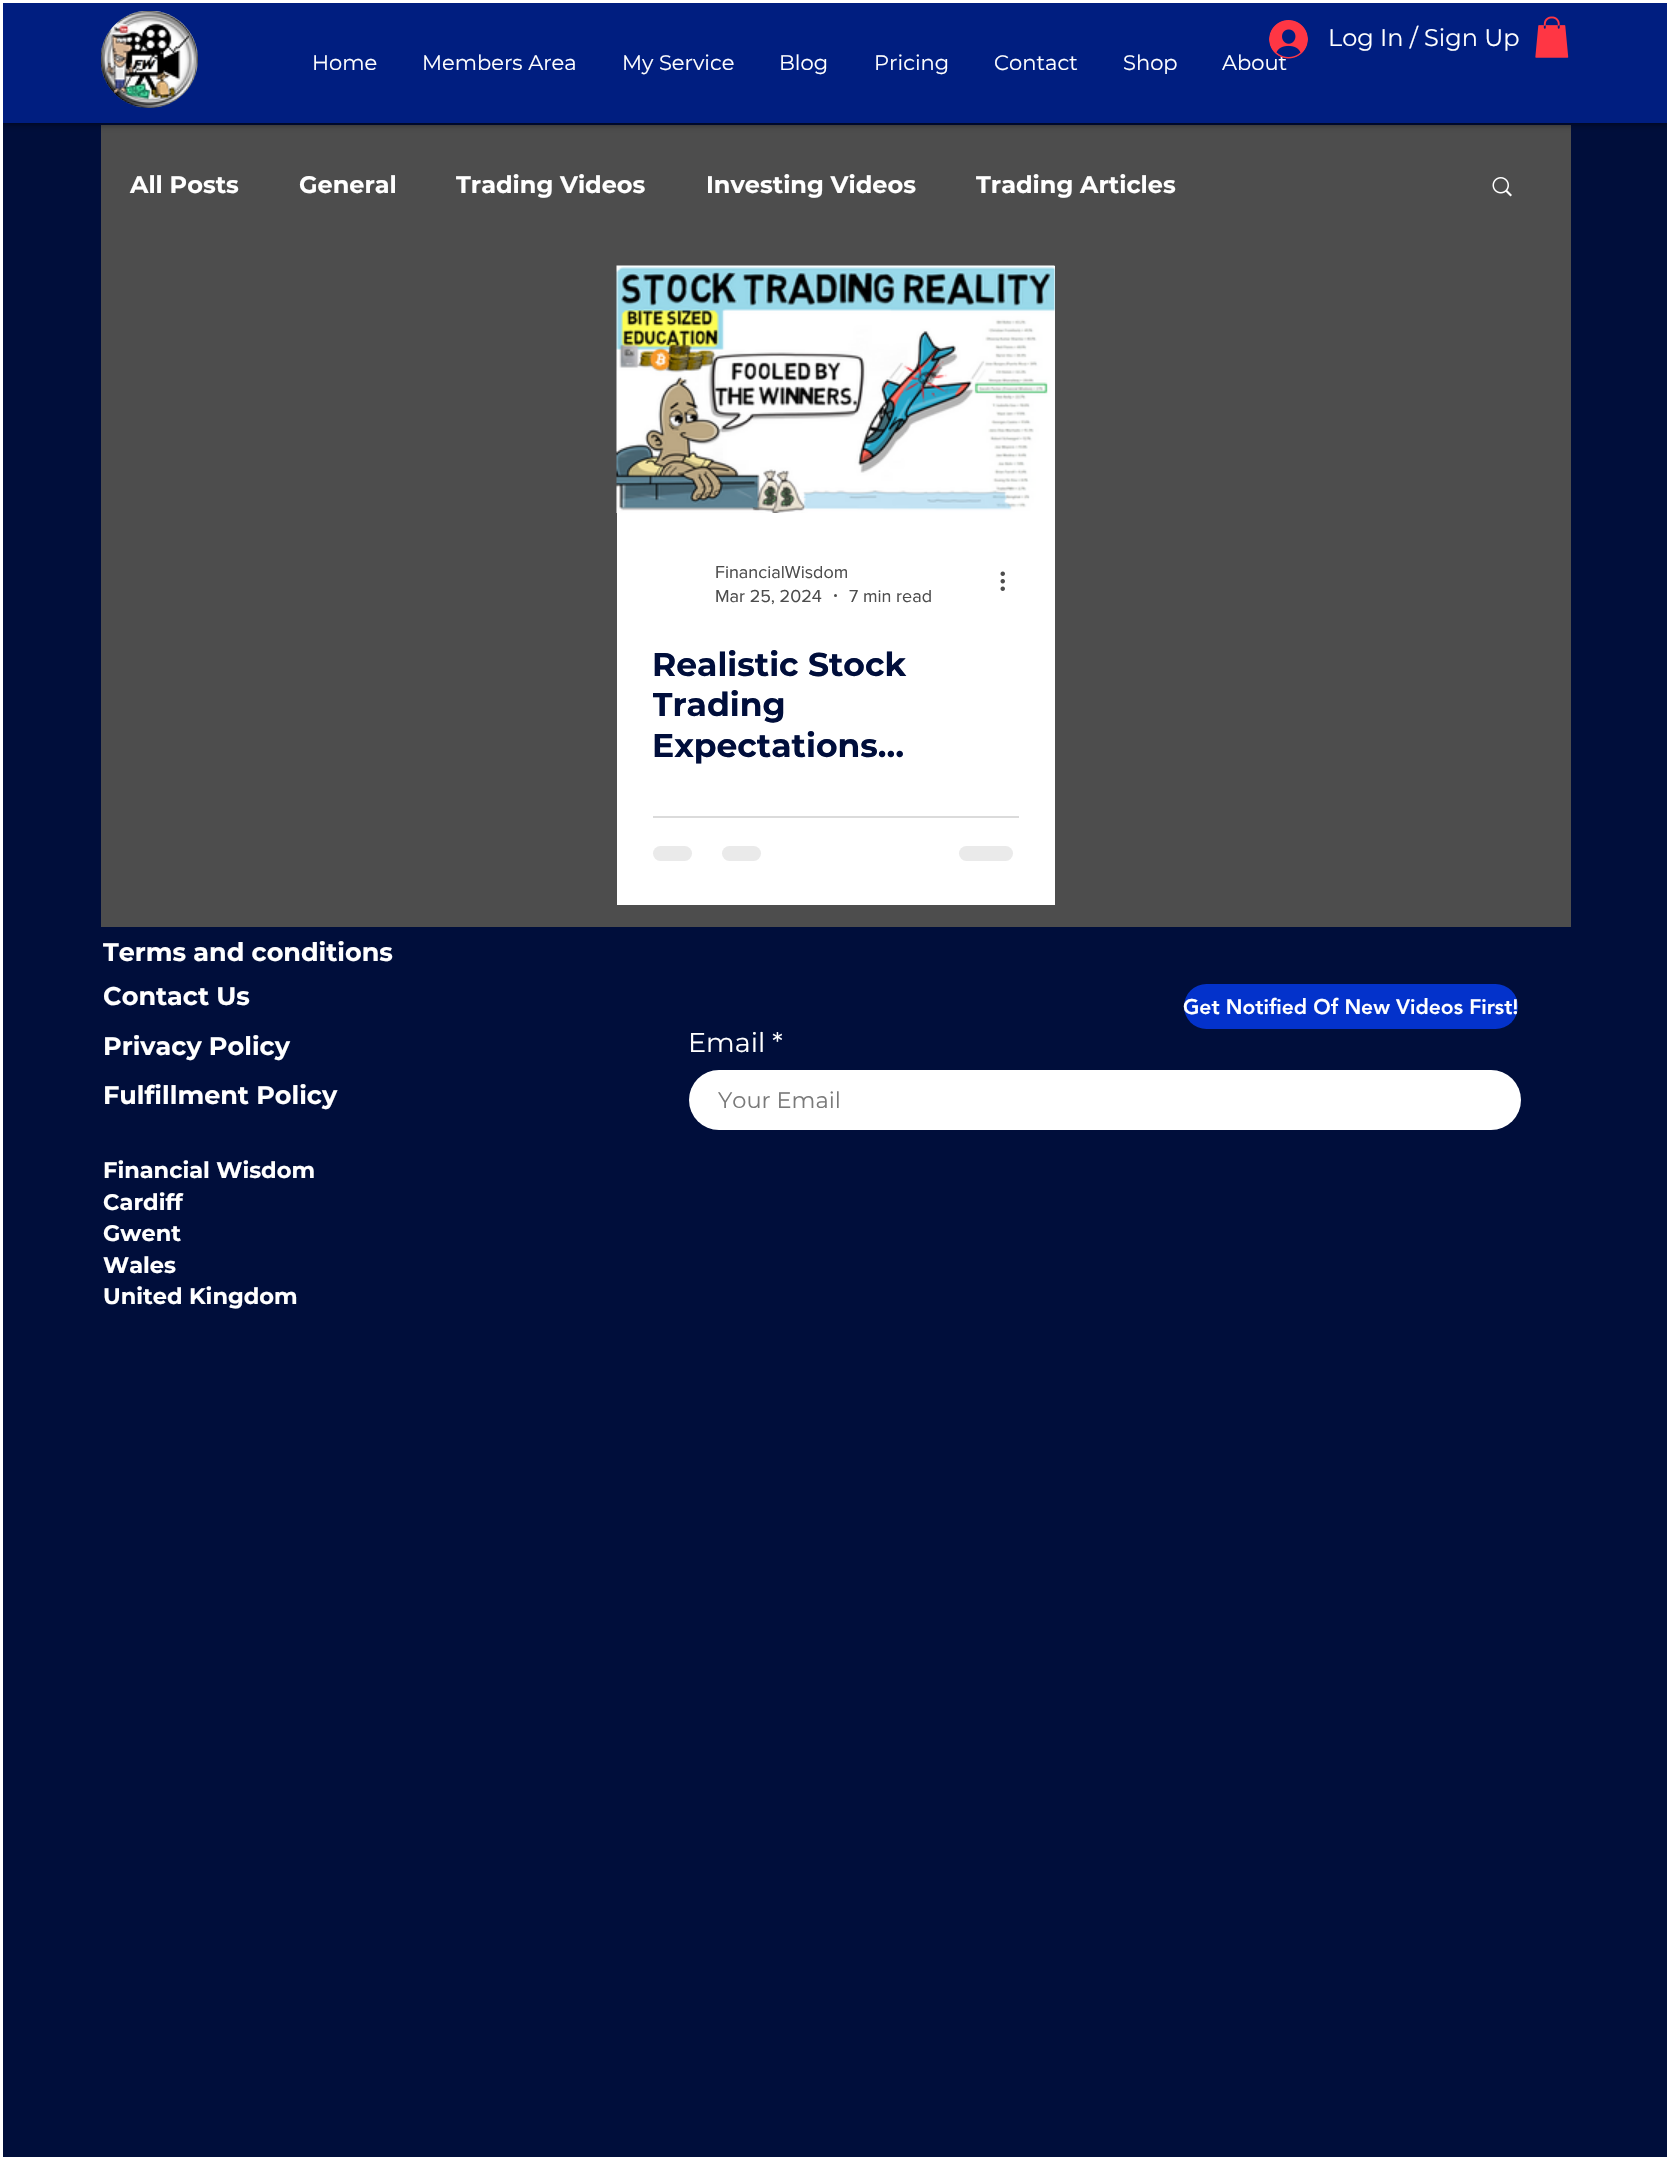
void draw(SkCanvas* canvas) {
  SkPaint paint;
  paint.setAntiAlias(true);
  auto face = [&](const char* family, int weight, float size, bool italic = false) {
    SkFontStyle style(weight, SkFontStyle::kNormal_Width,
      italic ? SkFontStyle::kItalic_Slant : SkFontStyle::kUpright_Slant);
    SkFont result(fontMgr->matchFamilyStyle(family, style), size);
    result.setSubpixel(true);
    return result;
  };
  auto paste = [&](const char* path, float x, float y, float w, float h) {
    auto image = SkImages::DeferredFromEncodedData(SkData::MakeFromFileName(path));
    canvas->drawImageRect(image, SkRect::MakeXYWH(x, y, w, h), SkSamplingOptions());
  };
  canvas->clear(0xff000e3b);
  paint.setColor(0xff4d4d4d);
  canvas->drawRect(SkRect::MakeXYWH(101, 125, 1470, 802), paint);
  paint.setColor(0xb3000000);
  paint.setMaskFilter(SkMaskFilter::MakeBlur(kNormal_SkBlurStyle, 4));
  canvas->drawRect(SkRect::MakeXYWH(0, 0, 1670, 123), paint);
  paint.setMaskFilter(nullptr);
  {
    const struct { float x, y, w, h; SkColor color; } items[] = {
      {0, 0, 1669, 3, 0xffffffff},
      {0, 0, 3, 2182, 0xffffffff},
      {3, 3, 1664, 120, 0xff001e80},
    };
    for (auto [x, y, w, h, color] : items) {
      paint.setColor(color);
      canvas->drawRect(SkRect::MakeXYWH(x, y, w, h), paint);
    }
  }
  paste("img/1.png", 101, 11, 97, 97);
  paste("img/3.png", 1535, 16, 34, 42);
  paint.setColor(0xffffffff);
  canvas->drawRect(SkRect::MakeXYWH(1667, 0, 2, 2157), paint);
  paste("img/4.png", 1492, 177, 20, 20);
  canvas->drawRect(SkRect::MakeXYWH(617, 266, 438, 639), paint);
  paste("img/5.png", 616, 265, 439, 248);
  paint.setColor(0xff4d4d4d);
  canvas->drawCircle(835.5f, 595.5f, 1.5f, paint);
  paste("img/6.png", 1000, 571, 5, 20);
  paint.setColor(0xffdbdbdb);
  canvas->drawRect(SkRect::MakeXYWH(653, 816, 366, 2), paint);
  paint.setColor(0xffeaeaea);
  canvas->drawRoundRect(SkRect::MakeXYWH(653, 846, 39, 15), 7.5f, 7.5f, paint);
  canvas->drawRoundRect(SkRect::MakeXYWH(722, 846, 39, 15), 7.5f, 7.5f, paint);
  canvas->drawRoundRect(SkRect::MakeXYWH(959, 846, 54, 15), 7.5f, 7.5f, paint);
  paint.setColor(0xff0332cb);
  canvas->drawRoundRect(SkRect::MakeXYWH(1184, 984, 334, 45), 22.5f, 22.5f, paint);
  paint.setColor(0xffffffff);
  canvas->drawRoundRect(SkRect::MakeXYWH(689, 1070, 832, 60), 30, 30, paint);
  canvas->drawRect(SkRect::MakeXYWH(3, 2157, 1666, 25), paint);
  auto f0 = face("Montserrat", 400, 24);
  canvas->drawString("Log In / Sign Up", 1328, 46, f0, paint);
  auto f1 = face("Montserrat", 400, 21);
  {
    const struct { const char* s; float x, y; } items[] = {
      {"Home", 312, 70},
      {"Members Area", 422, 70},
      {"My Service", 622, 70},
      {"Blog", 779, 70},
      {"Pricing", 874, 70},
      {"Contact", 994, 70},
      {"Shop", 1123, 70},
      {"About", 1222, 70},
    };
    for (auto [s, x, y] : items) {
      canvas->drawString(s, x, y, f1, paint);
    }
  }
  paste("img/2.png", 1269, 20, 39, 39);
  auto f2 = face("Montserrat", 700, 24);
  {
    const struct { const char* s; float x, y; } items[] = {
      {"All Posts", 130, 193},
      {"General", 299, 193},
      {"Trading Videos", 456, 193},
      {"Investing Videos", 706, 193},
      {"Trading Articles", 976, 193},
    };
    for (auto [s, x, y] : items) {
      canvas->drawString(s, x, y, f2, paint);
    }
  }
  auto f3 = face("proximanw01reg", 400, 18);
  paint.setColor(0xff4d4d4d);
  {
    const struct { const char* s; float x, y; } items[] = {
      {"FinancialWisdom", 715, 578},
      {"Mar 25, 2024", 715, 602},
      {"7 min read", 849, 602},
    };
    for (auto [s, x, y] : items) {
      canvas->drawString(s, x, y, f3, paint);
    }
  }
  auto f4 = face("Montserrat", 700, 33);
  paint.setColor(0xff000e3b);
  canvas->drawString("Realistic Stock", 652, 676, f4, paint);
  canvas->save();
  canvas->clipRect(SkRect::MakeXYWH(653, 644, 366, 121));
  canvas->drawString("Trading", 652, 716, f4, paint);
  canvas->restore();
  canvas->drawString("Expectations…", 652, 757, f4, paint);
  auto f5 = face("Montserrat", 700, 25.5f);
  paint.setColor(0xffffffff);
  canvas->drawString("Terms and conditions", 103, 961, f5, paint);
  canvas->drawString("Contact Us", 103, 1005, f5, paint);
  auto f6 = face("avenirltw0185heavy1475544", 900, 21);
  canvas->drawString("Get Notified Of New Videos First!", 1183, 1014, f6, paint);
  auto f7 = face("Montserrat", 400, 27);
  canvas->drawString("Email *", 688, 1052, f7, paint);
  auto f8 = face("Montserrat", 400, 22.5f);
  paint.setColor(0xff7a7a7a);
  canvas->drawString("Your Email", 718, 1108, f8, paint);
  paint.setColor(0xffffffff);
  canvas->drawString("Privacy Policy", 103, 1055, f5, paint);
  canvas->drawString("Fulfillment Policy", 103, 1104, f5, paint);
  auto f9 = face("Montserrat", 700, 22.5f);
  {
    const struct { const char* s; float x, y; } items[] = {
      {"Financial Wisdom", 103, 1178},
      {"Cardiff", 103, 1210},
      {"Gwent", 103, 1241},
      {"Wales", 103, 1273},
      {"United Kingdom", 103, 1304},
    };
    for (auto [s, x, y] : items) {
      canvas->drawString(s, x, y, f9, paint);
    }
  }
}
